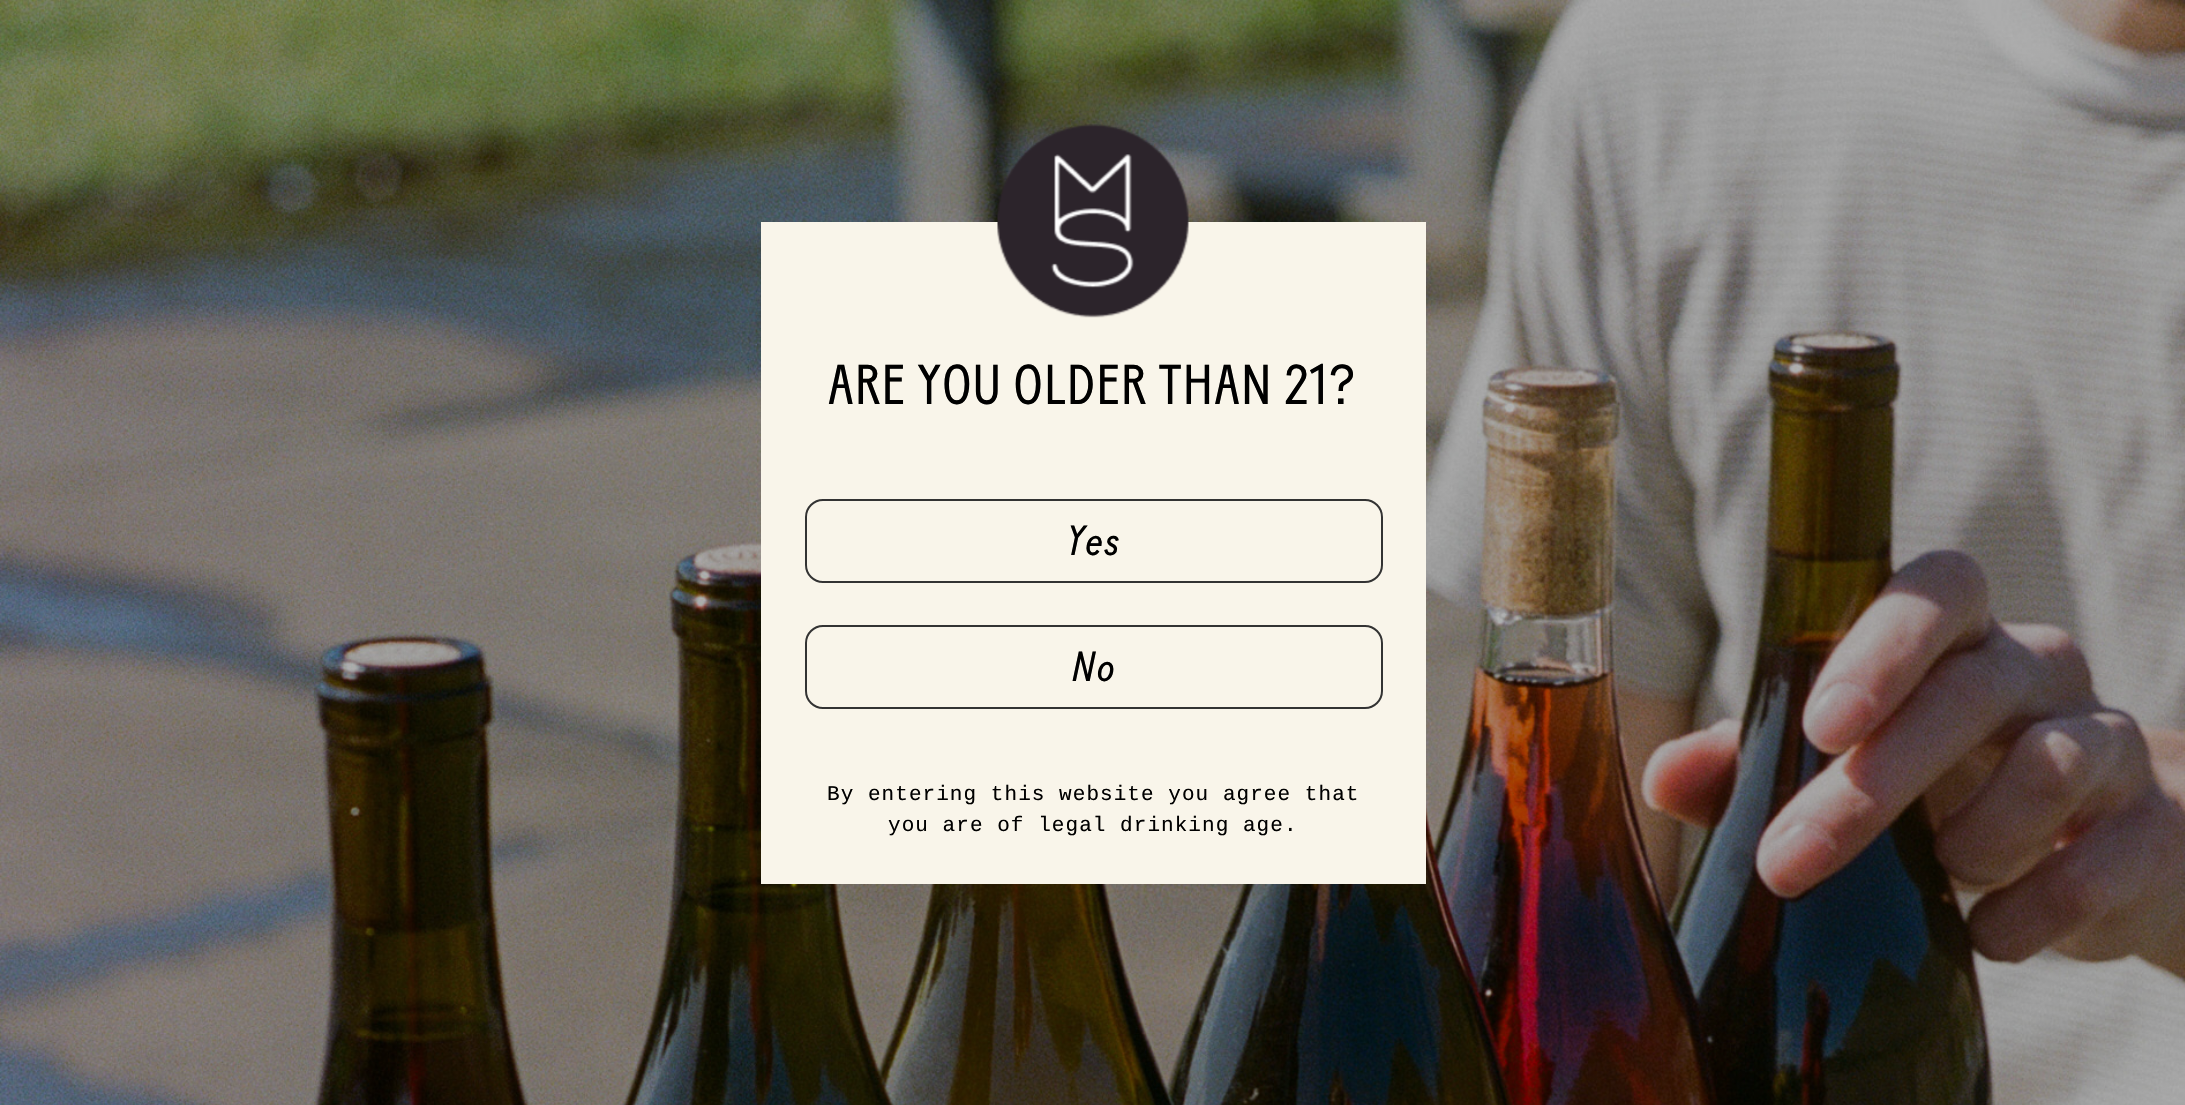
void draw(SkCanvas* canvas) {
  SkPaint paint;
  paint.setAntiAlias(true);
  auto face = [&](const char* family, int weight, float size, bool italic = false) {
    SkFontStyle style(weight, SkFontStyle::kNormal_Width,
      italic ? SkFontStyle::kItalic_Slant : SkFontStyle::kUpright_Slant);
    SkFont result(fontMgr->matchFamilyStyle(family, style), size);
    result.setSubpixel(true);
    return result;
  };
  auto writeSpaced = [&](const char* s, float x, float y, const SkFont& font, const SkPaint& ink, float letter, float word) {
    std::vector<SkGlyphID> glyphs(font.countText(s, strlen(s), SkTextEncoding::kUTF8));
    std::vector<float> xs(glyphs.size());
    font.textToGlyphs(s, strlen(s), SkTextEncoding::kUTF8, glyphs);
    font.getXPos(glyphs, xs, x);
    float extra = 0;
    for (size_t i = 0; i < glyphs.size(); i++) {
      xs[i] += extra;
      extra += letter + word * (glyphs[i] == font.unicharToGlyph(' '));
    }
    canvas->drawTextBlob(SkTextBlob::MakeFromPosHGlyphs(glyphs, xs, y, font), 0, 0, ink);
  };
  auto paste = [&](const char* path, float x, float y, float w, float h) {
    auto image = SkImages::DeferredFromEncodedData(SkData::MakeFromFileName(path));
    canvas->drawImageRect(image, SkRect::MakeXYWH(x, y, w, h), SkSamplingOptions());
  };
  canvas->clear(0xffffffff);
  paste("img/1.png", 0, 0, 2185, 1105);
  paint.setColor(0xfff9f5ea);
  canvas->drawRect(SkRect::MakeXYWH(761, 222, 665, 662), paint);
  paste("img/2.png", 997, 124, 192, 194);
  paint.setStroke(true);
  paint.setStrokeWidth(2);
  paint.setColor(0xff333333);
  canvas->drawRoundRect(SkRect::MakeXYWH(806, 500, 576, 82), 17, 17, paint);
  canvas->drawRoundRect(SkRect::MakeXYWH(806, 626, 576, 82), 17, 17, paint);
  auto f0 = face("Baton", 400, 56);
  paint.setStroke(false);
  paint.setColor(0xff000000);
  writeSpaced("ARE YOU OLDER THAN 21?", 828, 404, f0, paint, 1.05f, 0);
  auto f1 = face("Baton", 400, 42, true);
  writeSpaced("Yes", 1066, 555, f1, paint, 2, 0);
  writeSpaced("No", 1071, 681, f1, paint, 2, 0);
  auto f2 = face("Liberation Mono", 400, 21);
  writeSpaced("By entering this website you agree that", 827, 800, f2, paint, 1.05f, 0);
  writeSpaced("you are of legal drinking age.", 888, 831, f2, paint, 1.05f, 0);
}
